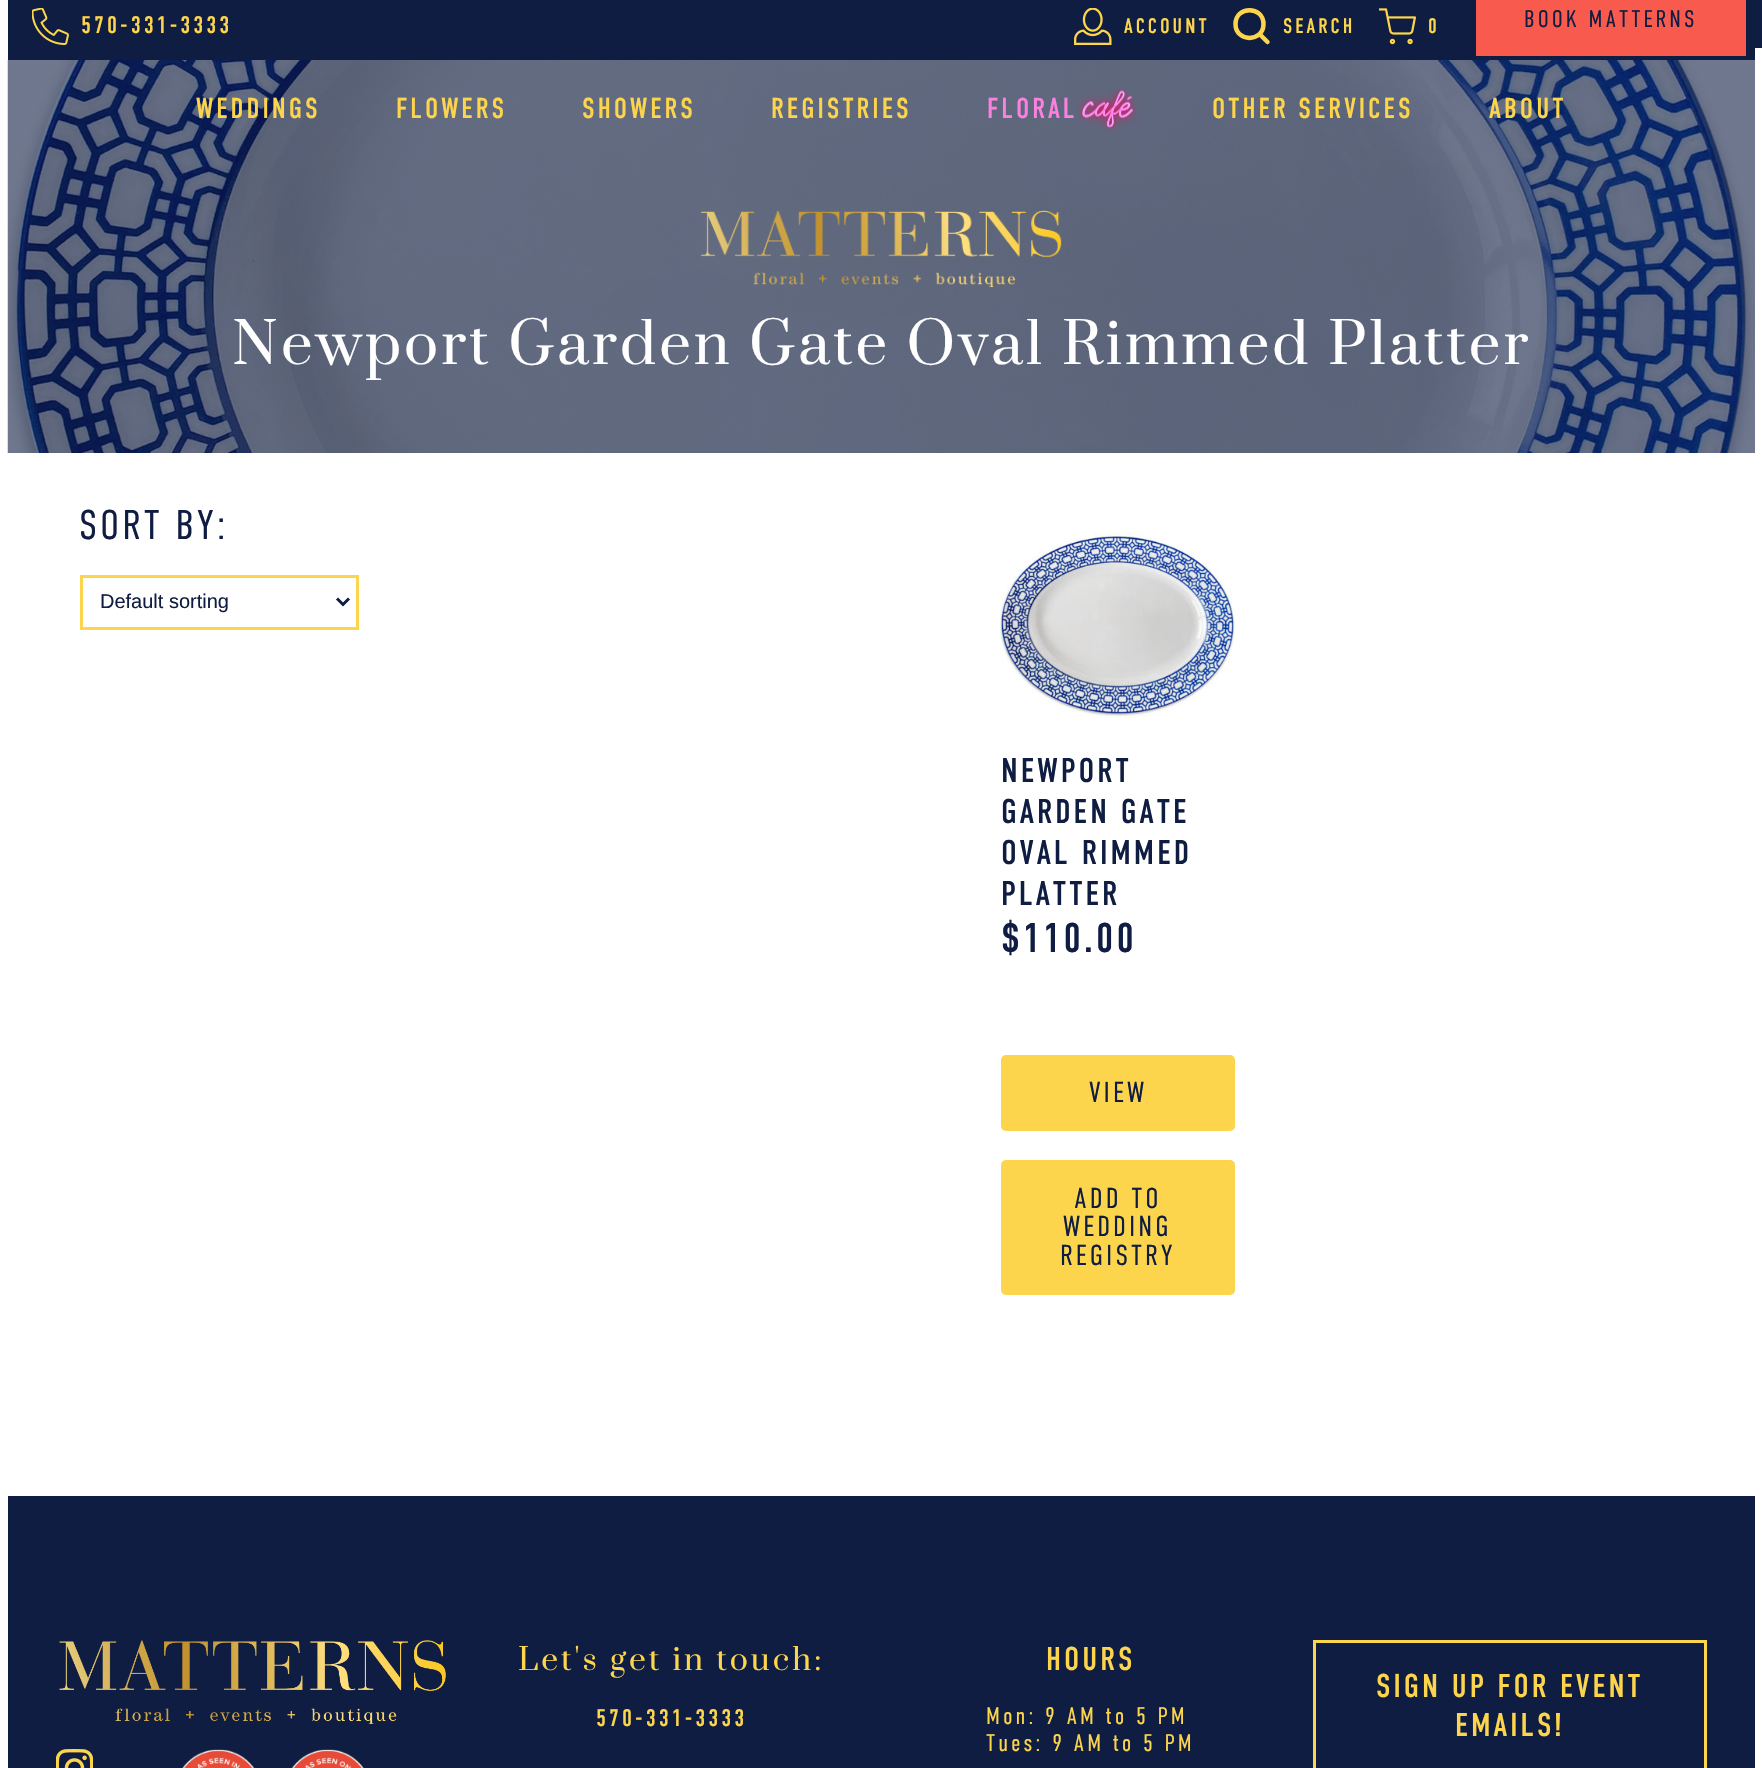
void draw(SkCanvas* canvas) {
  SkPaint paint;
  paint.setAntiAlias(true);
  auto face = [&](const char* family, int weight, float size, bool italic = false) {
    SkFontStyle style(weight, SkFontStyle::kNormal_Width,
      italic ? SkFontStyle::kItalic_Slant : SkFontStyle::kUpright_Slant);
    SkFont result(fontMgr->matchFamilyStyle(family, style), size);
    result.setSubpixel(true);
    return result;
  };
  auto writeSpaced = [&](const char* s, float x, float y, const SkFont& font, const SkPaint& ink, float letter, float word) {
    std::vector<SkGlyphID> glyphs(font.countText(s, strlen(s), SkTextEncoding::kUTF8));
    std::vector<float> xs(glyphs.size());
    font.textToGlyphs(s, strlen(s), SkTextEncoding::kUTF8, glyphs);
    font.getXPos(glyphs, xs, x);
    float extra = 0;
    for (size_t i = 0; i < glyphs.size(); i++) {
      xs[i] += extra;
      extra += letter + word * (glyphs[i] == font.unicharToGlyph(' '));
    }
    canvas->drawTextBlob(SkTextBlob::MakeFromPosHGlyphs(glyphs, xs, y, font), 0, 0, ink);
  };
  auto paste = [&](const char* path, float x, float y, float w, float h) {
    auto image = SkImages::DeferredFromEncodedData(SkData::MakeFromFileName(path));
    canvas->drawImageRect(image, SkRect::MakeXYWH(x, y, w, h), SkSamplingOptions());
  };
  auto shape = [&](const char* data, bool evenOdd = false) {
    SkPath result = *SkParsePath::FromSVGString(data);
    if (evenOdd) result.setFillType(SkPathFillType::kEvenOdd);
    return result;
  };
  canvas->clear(0xffffffff);
  paint.setColor(0xff0f1d42);
  canvas->drawRect(SkRect::MakeXYWH(8, 48, 1747, 12), paint);
  canvas->drawRect(SkRect::MakeXYWH(8, 0, 1754, 48), paint);
  paste("img/1.png", 32, 8, 37, 37);
  paste("img/2.png", 1074, 8, 38, 37);
  paint.setStroke(true);
  paint.setStrokeWidth(4.5f);
  paint.setStrokeCap(SkPaint::kRound_Cap);
  paint.setStrokeJoin(SkPaint::kRound_Join);
  paint.setColor(0xfffdd54c);
  canvas->drawPath(shape("M1263.5 24C1263.5 42.5 1235.5 42.5 1235.5 24C1235.5 5.5 1263.5 5.5 1263.5 24ZM1267.5 42L1259.5 34"), paint);
  paste("img/3.png", 1379, 8, 37, 37);
  paint.setStroke(false);
  paint.setColor(0xfff85a4e);
  canvas->drawRect(SkRect::MakeXYWH(1476, 0, 270, 56), paint);
  paste("img/5.png", 7, 60, 1748, 393);
  paste("img/4.png", 1077, 88, 60, 43);
  paste("img/6.png", 700, 210, 362, 78);
  paint.setStroke(true);
  paint.setStrokeWidth(3);
  paint.setStrokeCap(SkPaint::kButt_Cap);
  paint.setStrokeJoin(SkPaint::kMiter_Join);
  paint.setColor(0xfffdd54c);
  canvas->drawRect(SkRect::MakeXYWH(81.5f, 576.5f, 276, 52), paint);
  paint.setColor(0xff0f1d42);
  canvas->drawPath(shape("M337 598.5L343 604.5L349 598.5"), paint);
  paste("img/7.png", 1000, 532, 235, 186);
  paint.setStroke(false);
  paint.setColor(0xfffdd54c);
  canvas->drawRoundRect(SkRect::MakeXYWH(1001, 1055, 234, 76), 5, 5, paint);
  canvas->drawRoundRect(SkRect::MakeXYWH(1001, 1160, 234, 135), 5, 5, paint);
  paint.setColor(0xff0f1d42);
  canvas->drawRect(SkRect::MakeXYWH(8, 1496, 1747, 272), paint);
  paste("img/8.png", 59, 1640, 387, 84);
  paste("img/9.png", 56, 1749, 37, 19);
  paste("img/10.png", 182, 1749, 73, 19);
  paste("img/11.png", 291, 1749, 73, 19);
  paint.setStroke(true);
  paint.setColor(0xfffdd54c);
  canvas->drawRect(SkRect::MakeXYWH(1314.5f, 1641.5f, 391, 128), paint);
  auto f0 = face("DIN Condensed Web", 400, 24);
  paint.setStroke(false);
  writeSpaced("570-331-3333", 81, 33, f0, paint, 3, 0);
  auto f1 = face("DIN Condensed Web", 400, 21);
  {
    const struct { const char* s; float x, y; } items[] = {
      {"ACCOUNT", 1124, 33},
      {"SEARCH", 1283, 33},
      {"0", 1428, 33},
    };
    for (auto [s, x, y] : items) {
      writeSpaced(s, x, y, f1, paint, 3, 0);
    }
  }
  auto f2 = face("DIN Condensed", 300, 24);
  paint.setColor(0xff0f1d42);
  writeSpaced("BOOK MATTERNS", 1524, 27, f2, paint, 3, 0);
  auto f3 = face("DIN Condensed Web", 400, 28.75f);
  paint.setColor(0xfffdd54c);
  {
    const struct { const char* s; float x, y; } items[] = {
      {"WEDDINGS", 196, 118},
      {"FLOWERS", 396, 118},
      {"SHOWERS", 582, 118},
      {"REGISTRIES", 771, 118},
    };
    for (auto [s, x, y] : items) {
      writeSpaced(s, x, y, f3, paint, 3, 0);
    }
  }
  paint.setColor(0xfffc80de);
  writeSpaced("FLORAL", 987, 118, f3, paint, 3, 0);
  paint.setColor(0xfffdd54c);
  writeSpaced("OTHER SERVICES", 1212, 118, f3, paint, 3, 0);
  writeSpaced("ABOUT", 1489, 118, f3, paint, 3, 0);
  auto f4 = face("Prata", 400, 56.4f);
  paint.setColor(0xffffffff);
  writeSpaced("Newport Garden Gate Oval Rimmed Platter", 232, 364, f4, paint, 3, 0);
  auto f5 = face("DIN Condensed", 300, 41.5f);
  paint.setColor(0xff0f1d42);
  writeSpaced("SORT BY:", 79, 539, f5, paint, 3, 0);
  auto f6 = face("Liberation Sans", 400, 20);
  canvas->drawString("Default sorting", 100, 608, f6, paint);
  auto f7 = face("DIN Condensed Web", 400, 34.25f);
  {
    const struct { const char* s; float x, y; } items[] = {
      {"NEWPORT", 1001, 782},
      {"GARDEN GATE", 1001, 823},
      {"OVAL RIMMED", 1001, 864},
      {"PLATTER", 1001, 905},
    };
    for (auto [s, x, y] : items) {
      writeSpaced(s, x, y, f7, paint, 3, 0);
    }
  }
  auto f8 = face("DIN Condensed Web", 400, 41.5f);
  writeSpaced("$110.00", 1001, 952, f8, paint, 3, 0);
  auto f9 = face("DIN Condensed", 300, 28.75f);
  {
    const struct { const char* s; float x, y; } items[] = {
      {"VIEW", 1089, 1102},
      {"ADD TO", 1074, 1208},
      {"WEDDING", 1063, 1236},
      {"REGISTRY", 1060, 1265},
    };
    for (auto [s, x, y] : items) {
      writeSpaced(s, x, y, f9, paint, 3, 0);
    }
  }
  auto f10 = face("Prata", 400, 30);
  paint.setColor(0xfffdd54c);
  writeSpaced("Let's get in touch:", 518, 1670, f10, paint, 3, 0);
  writeSpaced("570-331-3333", 596, 1726, f0, paint, 3, 0);
  auto f11 = face("DIN Condensed Web", 400, 33);
  writeSpaced("HOURS", 1046, 1670, f11, paint, 3, 0);
  writeSpaced("Mon: 9 AM to 5 PM", 986, 1724, f2, paint, 3, 0);
  writeSpaced("Tues: 9 AM to 5 PM", 986, 1751, f2, paint, 3, 0);
  writeSpaced("SIGN UP FOR EVENT", 1376, 1697, f11, paint, 3, 0);
  writeSpaced("EMAILS!", 1455, 1736, f11, paint, 3, 0);
}
